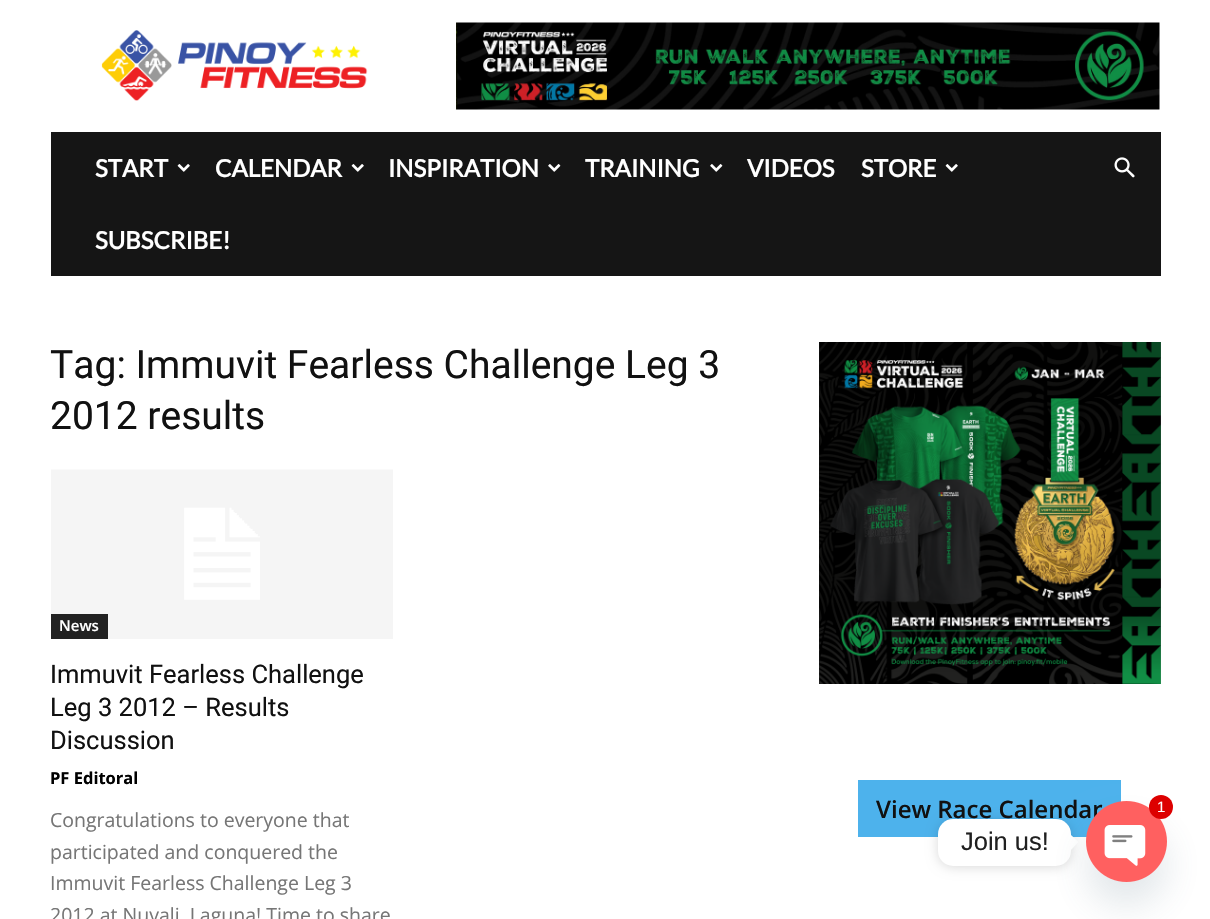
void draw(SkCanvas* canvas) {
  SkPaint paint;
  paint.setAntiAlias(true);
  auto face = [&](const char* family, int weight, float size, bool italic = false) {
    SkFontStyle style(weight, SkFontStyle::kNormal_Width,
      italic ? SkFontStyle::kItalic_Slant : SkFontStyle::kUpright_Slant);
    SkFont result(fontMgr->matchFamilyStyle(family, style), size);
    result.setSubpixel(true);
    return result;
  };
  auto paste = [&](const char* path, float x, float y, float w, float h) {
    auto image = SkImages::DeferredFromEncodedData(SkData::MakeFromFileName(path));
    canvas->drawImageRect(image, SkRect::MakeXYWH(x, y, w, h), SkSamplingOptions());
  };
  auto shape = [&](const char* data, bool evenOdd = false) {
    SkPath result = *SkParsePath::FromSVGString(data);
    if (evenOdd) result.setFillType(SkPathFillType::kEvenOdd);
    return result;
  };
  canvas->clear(0xffffffff);
  paste("img/1.png", 101, 30, 267, 71);
  paste("img/2.png", 456, 22, 704, 88);
  paint.setColor(0xff151515);
  canvas->drawRect(SkRect::MakeXYWH(51, 132, 1110, 144), paint);
  paste("img/3.png", 177, 164, 13, 8);
  paste("img/3.png", 351, 164, 13, 8);
  paste("img/4.png", 548, 164, 13, 8);
  paste("img/4.png", 710, 164, 13, 8);
  paste("img/3.png", 945, 164, 13, 8);
  paste("img/5.png", 1114, 157, 21, 21);
  paste("img/6.png", 51, 469, 342, 170);
  paint.setColor(0xff222222);
  canvas->drawRect(SkRect::MakeXYWH(51, 614, 57, 25), paint);
  paste("img/7.png", 819, 342, 342, 342);
  paint.setColor(0xff4db2ec);
  canvas->drawRect(SkRect::MakeXYWH(858, 780, 263, 57), paint);
  paint.setColor(0x26000000);
  paint.setMaskFilter(SkMaskFilter::MakeBlur(kNormal_SkBlurStyle, 6));
  canvas->drawRoundRect(SkRect::MakeXYWH(938, 821, 133, 46), 15, 15, paint);
  paint.setMaskFilter(nullptr);
  paint.setColor(0xffffffff);
  canvas->drawRoundRect(SkRect::MakeXYWH(938, 819, 133, 47), 15, 15, paint);
  canvas->drawPath(shape("M1071 850V835L1078.5 842Z"), paint);
  paint.setColor(0x2949687e);
  paint.setMaskFilter(SkMaskFilter::MakeBlur(kNormal_SkBlurStyle, 18));
  canvas->drawRoundRect(SkRect::MakeXYWH(1086, 825, 81, 81), 40.5f, 40.5f, paint);
  paint.setMaskFilter(nullptr);
  auto f0 = face("Lato", 700, 24);
  paint.setColor(0xffffffff);
  {
    const struct { const char* s; float x, y; } items[] = {
      {"START", 95, 177},
      {"CALENDAR", 215, 177},
      {"INSPIRATION", 388, 177},
      {"TRAINING", 585, 177},
      {"VIDEOS", 747, 177},
      {"STORE", 861, 177},
      {"SUBSCRIBE!", 95, 249},
    };
    for (auto [s, x, y] : items) {
      canvas->drawString(s, x, y, f0, paint);
    }
  }
  auto f1 = face("Roboto", 400, 39);
  paint.setColor(0xff111111);
  canvas->drawString("Tag: Immuvit Fearless Challenge Leg 3", 50, 378, f1, paint);
  canvas->drawString("2012 results", 50, 429, f1, paint);
  auto f2 = face("Open Sans", 600, 15);
  paint.setColor(0xffffffff);
  canvas->drawString("News", 59, 631, f2, paint);
  auto f3 = face("Roboto", 400, 25.5f);
  paint.setColor(0xff111111);
  {
    const struct { const char* s; float x, y; } items[] = {
      {"Immuvit Fearless Challenge", 50, 683},
      {"Leg 3 2012 – Results", 50, 716},
      {"Discussion", 50, 749},
    };
    for (auto [s, x, y] : items) {
      canvas->drawString(s, x, y, f3, paint);
    }
  }
  auto f4 = face("Open Sans", 700, 16.5f);
  paint.setColor(0xff000000);
  canvas->drawString("PF Editoral", 50, 784, f4, paint);
  auto f5 = face("Open Sans", 400, 19.5f);
  paint.setColor(0xff767676);
  {
    const struct { const char* s; float x, y; } items[] = {
      {"Congratulations to everyone that", 50, 827},
      {"participated and conquered the", 50, 859},
      {"Immuvit Fearless Challenge Leg 3", 50, 890},
      {"2012 at Nuvali, Laguna! Time to share", 50, 922},
    };
    for (auto [s, x, y] : items) {
      canvas->drawString(s, x, y, f5, paint);
    }
  }
  auto f6 = face("Open Sans", 600, 24);
  paint.setColor(0xff111111);
  canvas->drawString("View Race Calendar", 876, 818, f6, paint);
  paste("img/8.png", 1086, 801, 81, 81);
  paint.setColor(0xffdd0000);
  canvas->drawCircle(1161, 807, 12, paint);
  auto f7 = face("Liberation Sans", 400, 15);
  paint.setColor(0xffffffff);
  canvas->drawString("1", 1157, 812, f7, paint);
  auto f8 = face("Liberation Sans", 400, 25.5f);
  paint.setColor(0xff202020);
  canvas->drawString("Join us!", 961, 850, f8, paint);
}
